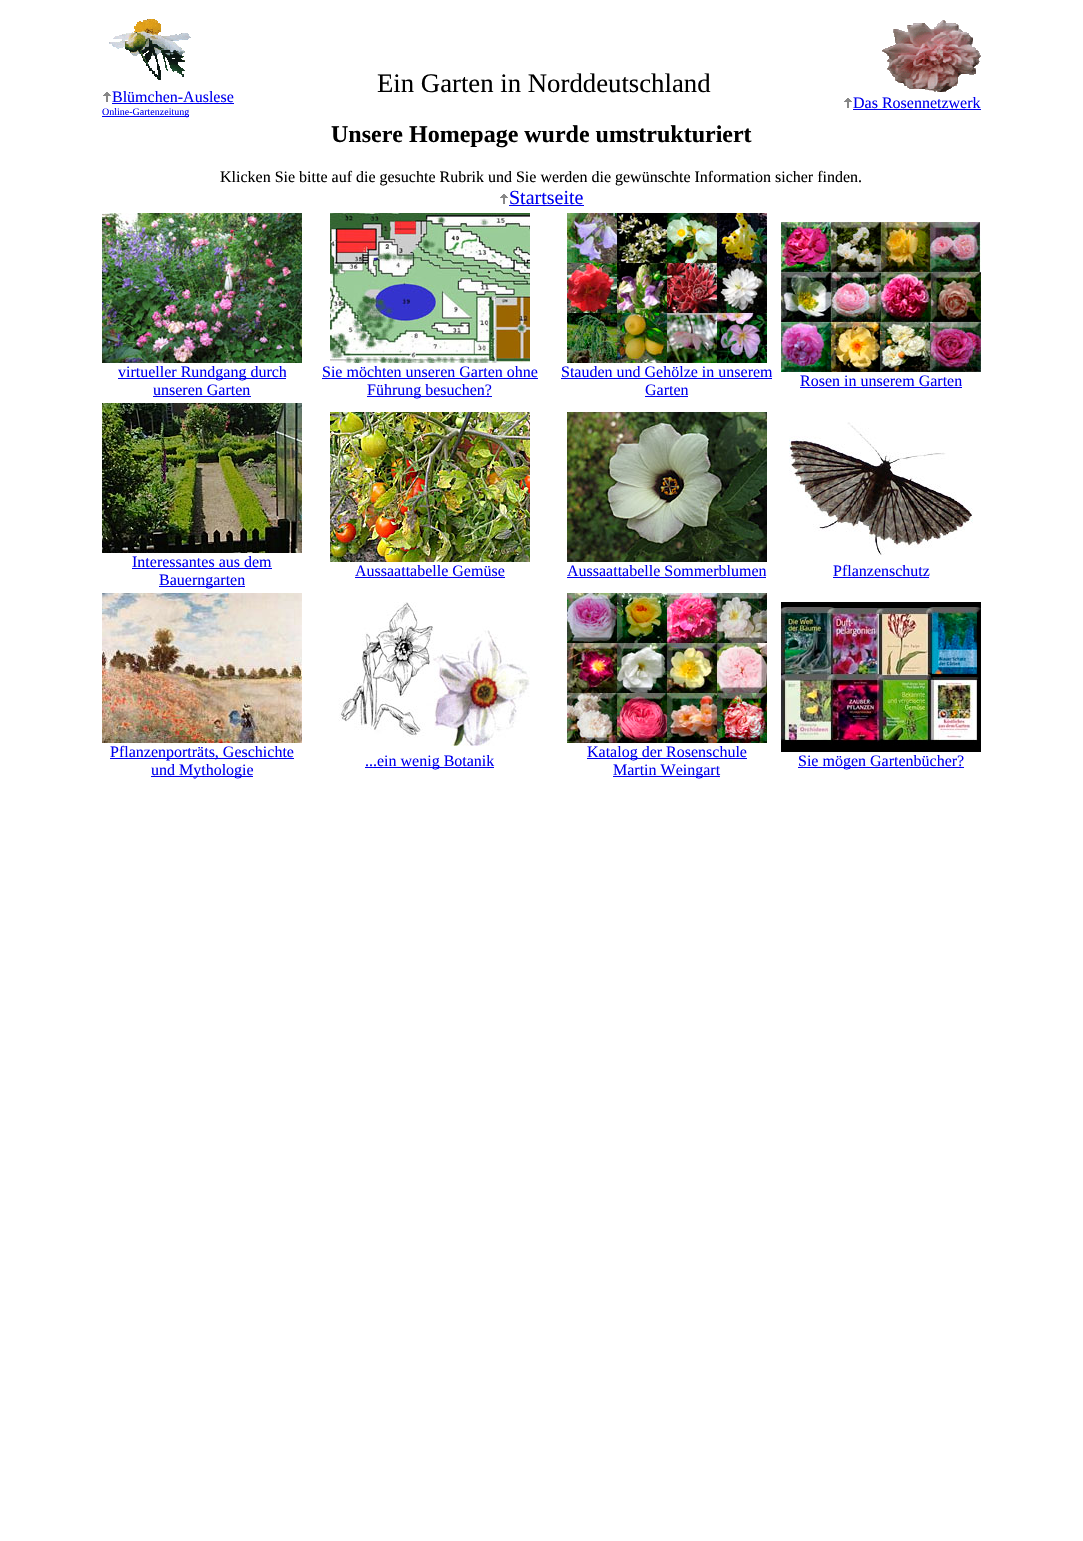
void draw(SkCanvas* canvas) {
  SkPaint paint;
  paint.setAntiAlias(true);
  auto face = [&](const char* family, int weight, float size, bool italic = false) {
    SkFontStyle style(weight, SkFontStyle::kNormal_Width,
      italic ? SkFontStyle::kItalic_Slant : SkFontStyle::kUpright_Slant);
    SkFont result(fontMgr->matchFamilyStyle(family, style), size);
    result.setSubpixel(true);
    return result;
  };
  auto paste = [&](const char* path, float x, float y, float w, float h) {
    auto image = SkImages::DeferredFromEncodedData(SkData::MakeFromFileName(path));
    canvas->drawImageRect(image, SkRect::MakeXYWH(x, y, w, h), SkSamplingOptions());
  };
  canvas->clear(0xffffffff);
  paste("img/1.png", 109, 19, 82, 61);
  paste("img/2.png", 103, 92, 8, 10);
  paint.setColor(0xff0000ee);
  canvas->drawRect(SkRect::MakeXYWH(112, 103, 122, 1), paint);
  canvas->drawRect(SkRect::MakeXYWH(102, 116, 87, 1), paint);
  paste("img/3.png", 882, 20, 99, 72);
  paste("img/2.png", 844, 98, 8, 10);
  canvas->drawRect(SkRect::MakeXYWH(853, 109, 128, 1), paint);
  paste("img/2.png", 500, 194, 8, 10);
  canvas->drawRect(SkRect::MakeXYWH(509, 205, 75, 1), paint);
  paste("img/4.png", 102, 213, 200, 150);
  canvas->drawRect(SkRect::MakeXYWH(118, 378, 168, 1), paint);
  canvas->drawRect(SkRect::MakeXYWH(153, 396, 98, 1), paint);
  paste("img/5.png", 330, 213, 200, 150);
  canvas->drawRect(SkRect::MakeXYWH(322, 378, 216, 1), paint);
  canvas->drawRect(SkRect::MakeXYWH(367, 396, 125, 1), paint);
  paste("img/6.png", 567, 213, 200, 150);
  canvas->drawRect(SkRect::MakeXYWH(561, 378, 211, 1), paint);
  canvas->drawRect(SkRect::MakeXYWH(645, 396, 43, 1), paint);
  paste("img/7.png", 781, 222, 200, 150);
  canvas->drawRect(SkRect::MakeXYWH(800, 387, 162, 1), paint);
  paste("img/8.png", 102, 403, 200, 150);
  canvas->drawRect(SkRect::MakeXYWH(132, 568, 140, 1), paint);
  canvas->drawRect(SkRect::MakeXYWH(159, 586, 86, 1), paint);
  paste("img/9.png", 330, 412, 200, 150);
  canvas->drawRect(SkRect::MakeXYWH(355, 577, 150, 1), paint);
  paste("img/10.png", 567, 412, 200, 150);
  canvas->drawRect(SkRect::MakeXYWH(567, 577, 199, 1), paint);
  paste("img/11.png", 789, 422, 184, 134);
  canvas->drawRect(SkRect::MakeXYWH(833, 577, 96, 1), paint);
  paste("img/12.png", 102, 593, 200, 150);
  canvas->drawRect(SkRect::MakeXYWH(110, 758, 184, 1), paint);
  canvas->drawRect(SkRect::MakeXYWH(151, 776, 102, 1), paint);
  paste("img/13.png", 338, 602, 192, 144);
  canvas->drawRect(SkRect::MakeXYWH(365, 767, 129, 1), paint);
  paste("img/14.png", 567, 593, 200, 150);
  canvas->drawRect(SkRect::MakeXYWH(587, 758, 160, 1), paint);
  canvas->drawRect(SkRect::MakeXYWH(613, 776, 107, 1), paint);
  paste("img/15.png", 781, 602, 200, 150);
  canvas->drawRect(SkRect::MakeXYWH(798, 767, 166, 1), paint);
  auto f0 = face("Liberation Serif", 400, 26.75f);
  paint.setColor(0xff000000);
  canvas->drawString("Ein Garten in Norddeutschland", 377, 92, f0, paint);
  auto f1 = face("Liberation Serif", 400, 16);
  paint.setColor(0xff0000ee);
  canvas->drawString("Blümchen-Auslese", 112, 102, f1, paint);
  auto f2 = face("Liberation Serif", 400, 10);
  canvas->drawString("Online-Gartenzeitung", 102, 115, f2, paint);
  canvas->drawString("Das Rosennetzwerk", 853, 108, f1, paint);
  auto f3 = face("Liberation Serif", 700, 24);
  paint.setColor(0xff000000);
  canvas->drawString("Unsere Homepage wurde umstrukturiert", 331, 142, f3, paint);
  canvas->drawString("Klicken Sie bitte auf die gesuchte Rubrik und Sie werden die gewünschte Information sicher finden.", 220, 182, f1, paint);
  auto f4 = face("Liberation Serif", 400, 20);
  paint.setColor(0xff0000ee);
  canvas->drawString("Startseite", 509, 204, f4, paint);
  {
    const struct { const char* s; float x, y; } items[] = {
      {"virtueller Rundgang durch", 118, 377},
      {"unseren Garten", 153, 395},
      {"Sie möchten unseren Garten ohne", 322, 377},
      {"Führung besuchen?", 367, 395},
      {"Stauden und Gehölze in unserem", 561, 377},
      {"Garten", 645, 395},
      {"Rosen in unserem Garten", 800, 386},
      {"Interessantes aus dem", 132, 567},
      {"Bauerngarten", 159, 585},
      {"Aussaattabelle Gemüse", 355, 576},
      {"Aussaattabelle Sommerblumen", 567, 576},
      {"Pflanzenschutz", 833, 576},
      {"Pflanzenporträts, Geschichte", 110, 757},
      {"und Mythologie", 151, 775},
      {"...ein wenig Botanik", 365, 766},
      {"Katalog der Rosenschule", 587, 757},
      {"Martin Weingart", 613, 775},
      {"Sie mögen Gartenbücher?", 798, 766},
    };
    for (auto [s, x, y] : items) {
      canvas->drawString(s, x, y, f1, paint);
    }
  }
}
